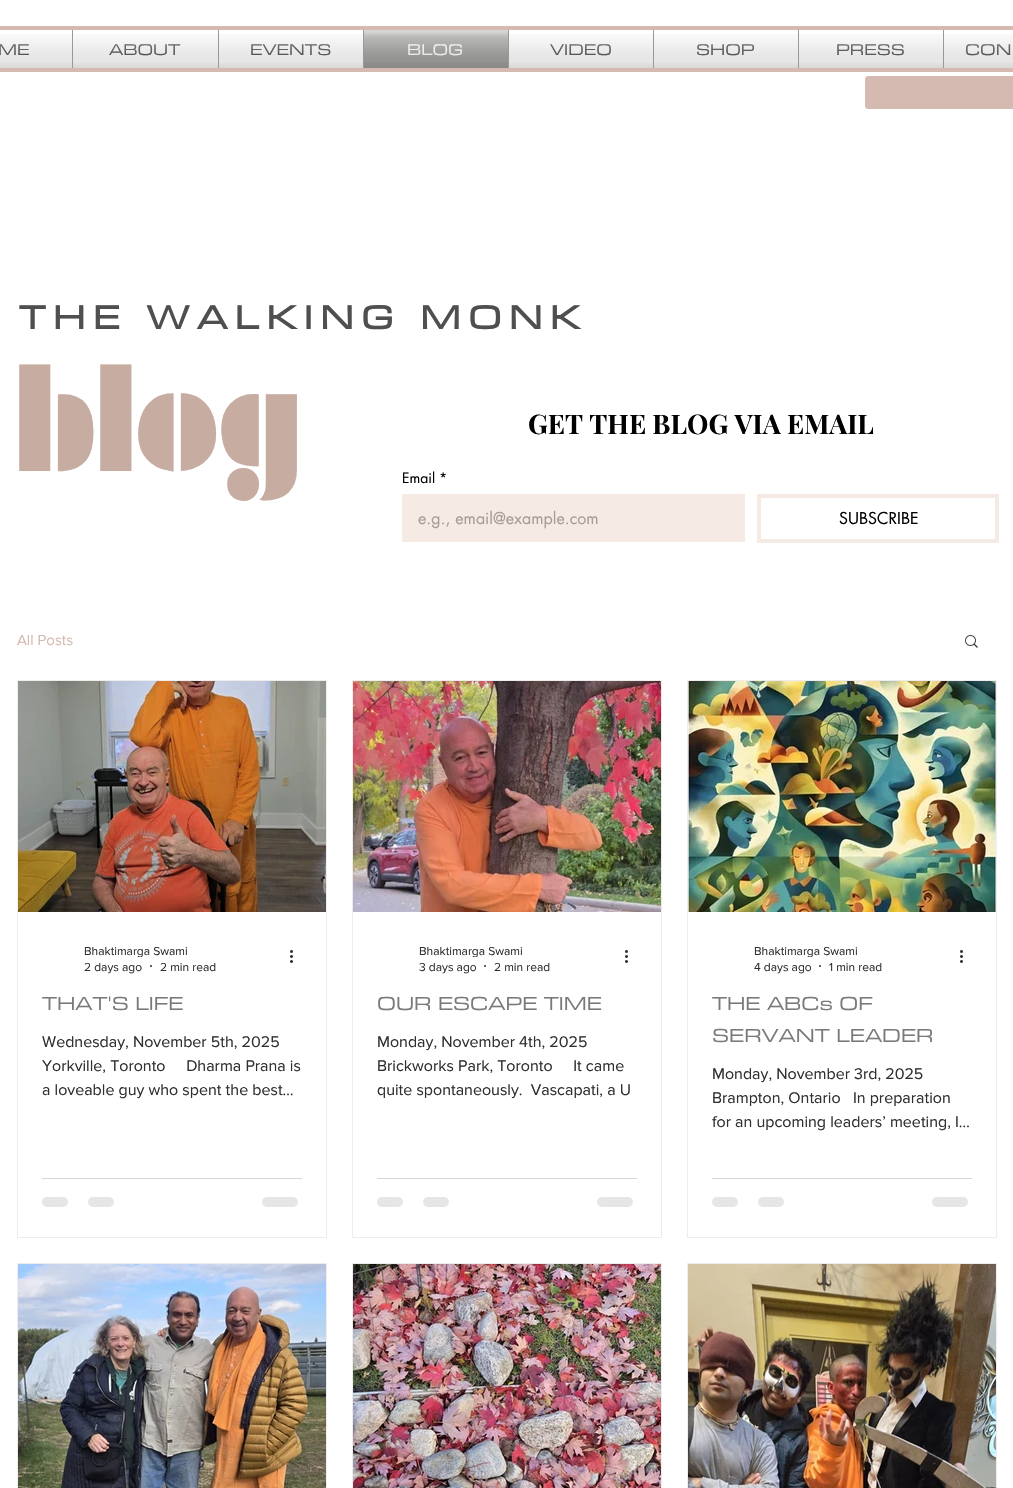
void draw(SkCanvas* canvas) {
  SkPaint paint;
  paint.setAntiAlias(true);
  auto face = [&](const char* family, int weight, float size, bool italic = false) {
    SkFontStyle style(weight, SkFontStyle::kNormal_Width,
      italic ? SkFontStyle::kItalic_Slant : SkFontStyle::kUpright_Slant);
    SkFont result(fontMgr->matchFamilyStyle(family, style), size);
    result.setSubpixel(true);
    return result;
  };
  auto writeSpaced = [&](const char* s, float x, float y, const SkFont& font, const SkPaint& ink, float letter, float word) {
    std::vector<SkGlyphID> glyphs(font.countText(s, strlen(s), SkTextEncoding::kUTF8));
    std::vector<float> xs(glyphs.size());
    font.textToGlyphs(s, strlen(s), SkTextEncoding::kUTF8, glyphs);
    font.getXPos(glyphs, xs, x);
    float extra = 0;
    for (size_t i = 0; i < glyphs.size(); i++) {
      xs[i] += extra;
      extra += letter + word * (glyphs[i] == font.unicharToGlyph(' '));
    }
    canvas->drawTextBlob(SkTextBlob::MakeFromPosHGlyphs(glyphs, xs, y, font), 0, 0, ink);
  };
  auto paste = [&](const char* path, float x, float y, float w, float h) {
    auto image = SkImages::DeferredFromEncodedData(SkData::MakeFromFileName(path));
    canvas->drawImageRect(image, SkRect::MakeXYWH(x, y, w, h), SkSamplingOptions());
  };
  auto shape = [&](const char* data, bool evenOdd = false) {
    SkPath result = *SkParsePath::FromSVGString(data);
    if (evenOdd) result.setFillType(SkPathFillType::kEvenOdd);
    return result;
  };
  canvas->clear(0xffffffff);
  paint.setStroke(true);
  paint.setStrokeWidth(4);
  paint.setColor(0xffd4bab0);
  canvas->drawRect(SkRect::MakeXYWH(-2, 28, 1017, 42), paint);
  paint.setStroke(false);
  {
    const struct { float x, y, w, h; SkColor color; } items[] = {
      {72, 30, 1, 38, 0xff999997},
      {218, 30, 1, 38, 0xff999997},
      {363, 30, 146, 38, 0xff999997},
      {653, 30, 1, 38, 0xff999997},
      {798, 30, 1, 38, 0xff999997},
      {943, 30, 1, 38, 0xff999997},
    };
    for (auto [x, y, w, h, color] : items) {
      paint.setColor(color);
      canvas->drawRect(SkRect::MakeXYWH(x, y, w, h), paint);
    }
  }
  paint.setColor(0xffd4bab0);
  canvas->drawPath(shape("M868 76H1013V109H868C866.5 109 865 107.5 865 106V79C865 77.5 866.5 76 868 76Z"), paint);
  paint.setColor(0xfff6ebe4);
  canvas->drawRect(SkRect::MakeXYWH(402, 494, 343, 48), paint);
  paint.setStroke(true);
  canvas->drawRect(SkRect::MakeXYWH(759, 496, 238, 45), paint);
  paste("img/17.png", 965, 635, 13, 13);
  paint.setStrokeWidth(1);
  paint.setColor(0xffeeecec);
  canvas->drawRect(SkRect::MakeXYWH(17.5f, 680.5f, 309, 557), paint);
  paste("img/18.png", 18, 681, 308, 231);
  paint.setStroke(false);
  paint.setColor(0xff303030);
  canvas->drawCircle(151, 966, 1, paint);
  paste("img/19.png", 290, 950, 3, 13);
  paint.setColor(0xffd6d6d6);
  canvas->drawRect(SkRect::MakeXYWH(42, 1178, 260, 1), paint);
  paint.setColor(0xffe6e6e6);
  canvas->drawRoundRect(SkRect::MakeXYWH(42, 1197, 26, 10), 5, 5, paint);
  canvas->drawRoundRect(SkRect::MakeXYWH(88, 1197, 26, 10), 5, 5, paint);
  canvas->drawRoundRect(SkRect::MakeXYWH(262, 1197, 36, 10), 5, 5, paint);
  paint.setStroke(true);
  paint.setColor(0xffeeecec);
  canvas->drawRect(SkRect::MakeXYWH(352.5f, 680.5f, 309, 557), paint);
  paste("img/20.png", 353, 681, 308, 231);
  paint.setStroke(false);
  paint.setColor(0xff303030);
  canvas->drawCircle(485, 966, 1, paint);
  paste("img/19.png", 625, 950, 3, 13);
  paint.setColor(0xffd6d6d6);
  canvas->drawRect(SkRect::MakeXYWH(377, 1178, 260, 1), paint);
  paint.setColor(0xffe6e6e6);
  canvas->drawRoundRect(SkRect::MakeXYWH(377, 1197, 26, 10), 5, 5, paint);
  canvas->drawRoundRect(SkRect::MakeXYWH(423, 1197, 26, 10), 5, 5, paint);
  canvas->drawRoundRect(SkRect::MakeXYWH(597, 1197, 36, 10), 5, 5, paint);
  paint.setStroke(true);
  paint.setColor(0xffeeecec);
  canvas->drawRect(SkRect::MakeXYWH(687.5f, 680.5f, 309, 557), paint);
  paste("img/21.png", 688, 681, 308, 231);
  paint.setStroke(false);
  paint.setColor(0xff303030);
  canvas->drawCircle(820, 966, 1, paint);
  paste("img/19.png", 960, 950, 3, 13);
  paint.setColor(0xffd6d6d6);
  canvas->drawRect(SkRect::MakeXYWH(712, 1178, 260, 1), paint);
  paint.setColor(0xffe6e6e6);
  canvas->drawRoundRect(SkRect::MakeXYWH(712, 1197, 26, 10), 5, 5, paint);
  canvas->drawRoundRect(SkRect::MakeXYWH(758, 1197, 26, 10), 5, 5, paint);
  canvas->drawRoundRect(SkRect::MakeXYWH(932, 1197, 36, 10), 5, 5, paint);
  paint.setStroke(true);
  paint.setColor(0xffeeecec);
  canvas->drawRect(SkRect::MakeXYWH(17.5f, 1263.5f, 309, 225), paint);
  paste("img/22.png", 18, 1264, 308, 224);
  canvas->drawRect(SkRect::MakeXYWH(352.5f, 1263.5f, 309, 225), paint);
  paste("img/23.png", 353, 1264, 308, 224);
  canvas->drawRect(SkRect::MakeXYWH(687.5f, 1263.5f, 309, 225), paint);
  paste("img/24.png", 688, 1264, 308, 224);
  auto f0 = face("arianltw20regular", 400, 19);
  paint.setStroke(false);
  paint.setColor(0xff414141);
  canvas->drawString("ME", -2, 55, f0, paint);
  paste("img/1.png", 0, 44, 29, 11);
  paste("img/2.png", 0, 34, 72, 34);
  canvas->drawString("ABOUT", 109, 55, f0, paint);
  paste("img/3.png", 109, 44, 72, 11);
  paste("img/4.png", 73, 34, 145, 34);
  canvas->drawString("EVENTS", 250, 55, f0, paint);
  paste("img/5.png", 251, 44, 79, 11);
  paste("img/6.png", 219, 34, 144, 34);
  paint.setColor(0xffffffff);
  canvas->drawString("BLOG", 407, 55, f0, paint);
  paste("img/7.png", 364, 30, 144, 38);
  paste("img/8.png", 364, 34, 144, 34);
  paint.setColor(0xff414141);
  canvas->drawString("VIDEO", 550, 55, f0, paint);
  paste("img/9.png", 549, 44, 62, 11);
  paste("img/10.png", 509, 34, 144, 34);
  canvas->drawString("SHOP", 696, 55, f0, paint);
  paste("img/11.png", 697, 44, 58, 11);
  paste("img/12.png", 654, 34, 144, 34);
  canvas->drawString("PRESS", 836, 55, f0, paint);
  paste("img/13.png", 837, 44, 67, 11);
  paste("img/14.png", 799, 34, 144, 34);
  canvas->drawString("CON", 965, 55, f0, paint);
  paste("img/15.png", 966, 44, 47, 11);
  paste("img/16.png", 944, 34, 69, 34);
  auto f1 = face("arianltw20regular", 700, 40);
  paint.setColor(0xff4f4f4f);
  writeSpaced("THE WALKING MONK", 19, 329, f1, paint, 8, 0);
  auto f2 = face("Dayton", 100, 148);
  paint.setColor(0xffc7aca1);
  canvas->drawString("blog", 15, 471, f2, paint);
  auto f3 = face("Playfair Display", 700, 27);
  paint.setColor(0xff000000);
  canvas->drawString("GET THE BLOG VIA EMAIL", 528, 434, f3, paint);
  auto f4 = face("futura", 400, 14);
  canvas->drawString("Email", 402, 483, f4, paint);
  canvas->drawString("*", 439, 483, f4, paint);
  auto f5 = face("futura", 400, 16);
  paint.setColor(0xffa89d96);
  canvas->drawString("e.g., email@example.com", 418, 524, f5, paint);
  paint.setColor(0xff000000);
  canvas->drawString("SUBSCRIBE", 839, 524, f5, paint);
  auto f6 = face("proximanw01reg", 400, 15);
  paint.setColor(0xffd4bab0);
  canvas->drawString("All Posts", 17, 645, f6, paint);
  canvas->save();
  canvas->clipRect(SkRect::MakeXYWH(84, 944, 103, 13));
  auto f7 = face("proximanw01reg", 400, 12);
  paint.setColor(0xff303030);
  canvas->drawString("Bhaktimarga Swami", 84, 955, f7, paint);
  canvas->restore();
  canvas->drawString("2 days ago", 84, 971, f7, paint);
  canvas->drawString("2 min read", 160, 971, f7, paint);
  auto f8 = face("arianltw20regular", 400, 23);
  paint.setColor(0xff7a7a7a);
  canvas->drawString("THAT'S LIFE", 42, 1010, f8, paint);
  auto f9 = face("proximanw01reg", 400, 16);
  paint.setColor(0xff303030);
  {
    const struct { const char* s; float x, y; } items[] = {
      {"Wednesday, November 5th, 2025", 42, 1047},
      {"Yorkville, Toronto     Dharma Prana is", 42, 1071},
      {"a loveable guy who spent the best…", 42, 1095},
    };
    for (auto [s, x, y] : items) {
      canvas->drawString(s, x, y, f9, paint);
    }
  }
  canvas->save();
  canvas->clipRect(SkRect::MakeXYWH(419, 944, 103, 13));
  canvas->drawString("Bhaktimarga Swami", 419, 955, f7, paint);
  canvas->restore();
  canvas->drawString("3 days ago", 419, 971, f7, paint);
  canvas->drawString("2 min read", 494, 971, f7, paint);
  paint.setColor(0xff7a7a7a);
  canvas->drawString("OUR ESCAPE TIME", 377, 1010, f8, paint);
  paint.setColor(0xff303030);
  {
    const struct { const char* s; float x, y; } items[] = {
      {"Monday, November 4th, 2025", 377, 1047},
      {"Brickworks Park, Toronto     It came", 377, 1071},
      {"quite spontaneously.  Vascapati, a U", 377, 1095},
    };
    for (auto [s, x, y] : items) {
      canvas->drawString(s, x, y, f9, paint);
    }
  }
  canvas->save();
  canvas->clipRect(SkRect::MakeXYWH(754, 944, 103, 13));
  canvas->drawString("Bhaktimarga Swami", 754, 955, f7, paint);
  canvas->restore();
  canvas->drawString("4 days ago", 754, 971, f7, paint);
  canvas->drawString("1 min read", 829, 971, f7, paint);
  paint.setColor(0xff7a7a7a);
  canvas->drawString("THE ABCs OF", 712, 1010, f8, paint);
  canvas->drawString("SERVANT LEADER", 712, 1042, f8, paint);
  paint.setColor(0xff303030);
  {
    const struct { const char* s; float x, y; } items[] = {
      {"Monday, November 3rd, 2025", 712, 1079},
      {"Brampton, Ontario   In preparation", 712, 1103},
      {"for an upcoming leaders’ meeting, I…", 712, 1127},
    };
    for (auto [s, x, y] : items) {
      canvas->drawString(s, x, y, f9, paint);
    }
  }
}
